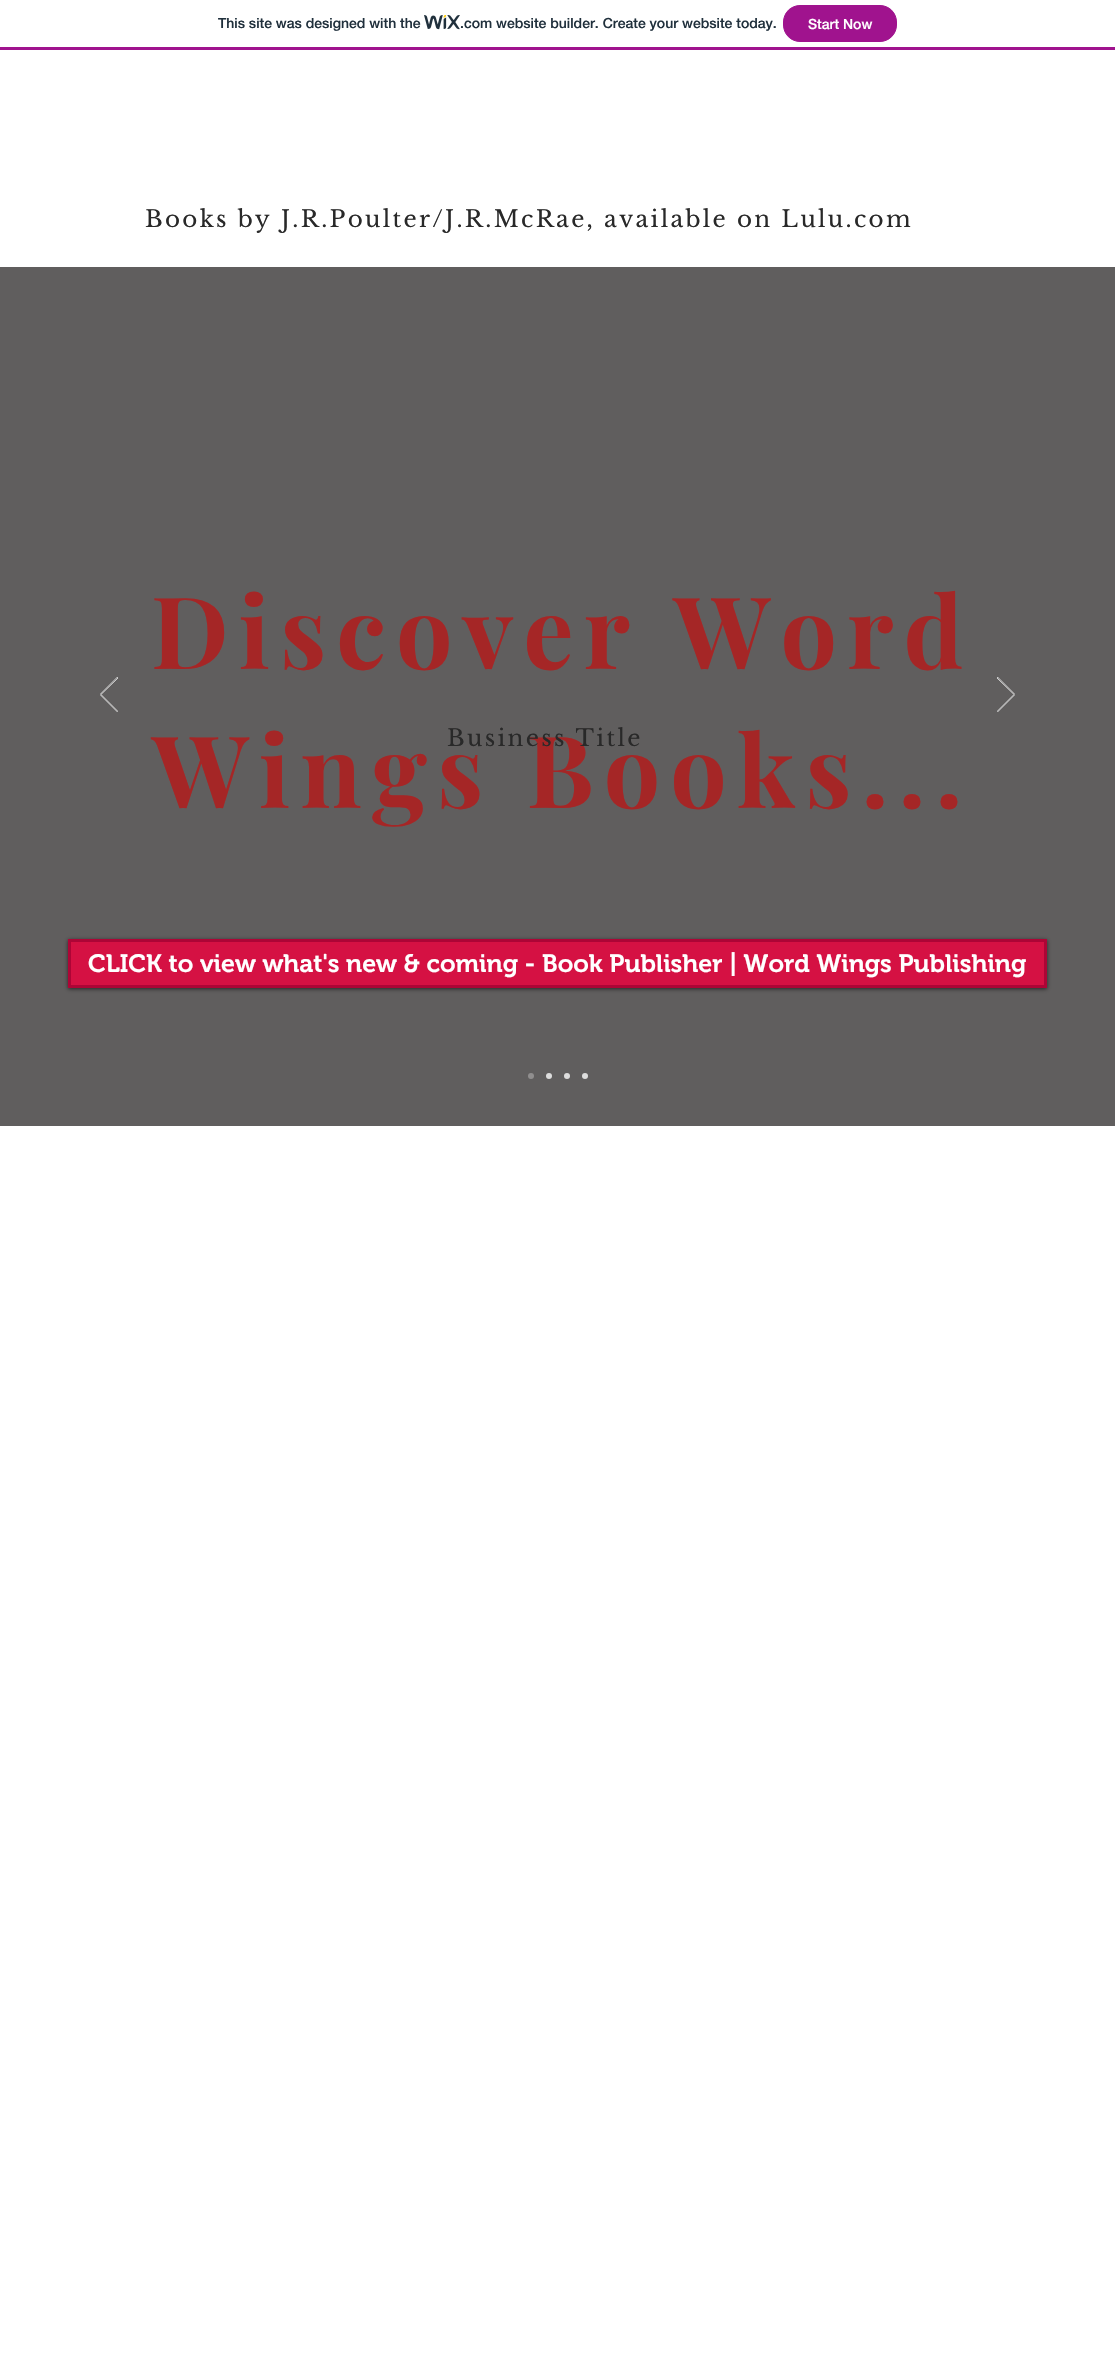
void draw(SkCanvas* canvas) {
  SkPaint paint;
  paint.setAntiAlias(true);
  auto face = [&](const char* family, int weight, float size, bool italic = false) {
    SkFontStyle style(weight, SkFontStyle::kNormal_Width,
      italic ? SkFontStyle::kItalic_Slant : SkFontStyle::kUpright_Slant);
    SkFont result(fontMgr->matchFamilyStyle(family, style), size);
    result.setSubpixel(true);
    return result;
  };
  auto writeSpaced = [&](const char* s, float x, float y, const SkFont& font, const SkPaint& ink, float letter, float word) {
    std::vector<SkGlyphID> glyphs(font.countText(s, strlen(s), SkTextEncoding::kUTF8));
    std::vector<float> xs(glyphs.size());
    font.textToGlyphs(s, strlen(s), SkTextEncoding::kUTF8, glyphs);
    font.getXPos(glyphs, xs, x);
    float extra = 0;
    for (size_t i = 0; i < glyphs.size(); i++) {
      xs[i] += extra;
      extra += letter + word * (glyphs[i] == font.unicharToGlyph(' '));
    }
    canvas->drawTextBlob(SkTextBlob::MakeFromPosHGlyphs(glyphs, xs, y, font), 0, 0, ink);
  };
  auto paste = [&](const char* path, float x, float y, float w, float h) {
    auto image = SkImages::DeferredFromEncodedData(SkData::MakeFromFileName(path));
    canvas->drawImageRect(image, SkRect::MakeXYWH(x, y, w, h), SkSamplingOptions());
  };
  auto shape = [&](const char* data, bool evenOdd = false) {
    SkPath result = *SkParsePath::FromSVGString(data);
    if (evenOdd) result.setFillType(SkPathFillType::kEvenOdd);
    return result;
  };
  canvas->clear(0xffffffff);
  paint.setColor(0xffa0138e);
  canvas->drawRect(SkRect::MakeXYWH(0, 47, 1115, 3), paint);
  paste("img/1.png", 424, 15, 36, 15);
  canvas->drawRoundRect(SkRect::MakeXYWH(783.5f, 5.5f, 113, 36), 16.5f, 16.5f, paint);
  paint.setStroke(true);
  paint.setStrokeWidth(1);
  canvas->drawRoundRect(SkRect::MakeXYWH(783.5f, 5.5f, 113, 36), 16.5f, 16.5f, paint);
  paint.setStroke(false);
  paint.setColor(0xff605e5e);
  canvas->drawRect(SkRect::MakeXYWH(0, 267, 1115, 859), paint);
  paint.setColor(0x99000000);
  paint.setMaskFilter(SkMaskFilter::MakeBlur(kNormal_SkBlurStyle, 2));
  canvas->drawRect(SkRect::MakeXYWH(68, 940, 979, 49), paint);
  paint.setMaskFilter(nullptr);
  paint.setColor(0xffd51143);
  canvas->drawRect(SkRect::MakeXYWH(69.5f, 940.5f, 976, 46), paint);
  paint.setStroke(true);
  paint.setStrokeWidth(3);
  paint.setColor(0xffad0536);
  canvas->drawRect(SkRect::MakeXYWH(69.5f, 940.5f, 976, 46), paint);
  canvas->save();
  canvas->clipRect(SkRect::MakeXYWH(100, 677, 18, 36));
  paint.setStrokeWidth(0.9f);
  paint.setColor(0xffdddddd);
  canvas->drawPath(shape("M117.5 712L100 694.5L117.5 677L118 678L101 694.5L118 711.5Z"), paint);
  canvas->restore();
  canvas->save();
  canvas->clipRect(SkRect::MakeXYWH(997, 677, 18, 36));
  canvas->drawPath(shape("M997.5 712L1015 694.5L997.5 677L997 678L1014 694.5L997 711.5Z"), paint);
  canvas->restore();
  paint.setStroke(false);
  paint.setColor(0xff908e8e);
  canvas->drawCircle(531, 1076, 3, paint);
  paint.setColor(0xffdddddd);
  canvas->drawCircle(549, 1076, 3, paint);
  canvas->drawCircle(567, 1076, 3, paint);
  canvas->drawCircle(585, 1076, 3, paint);
  auto f0 = face("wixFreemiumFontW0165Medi", 500, 14);
  paint.setColor(0xff20303c);
  canvas->drawString("This site was designed with the", 218, 28, f0, paint);
  canvas->drawString(".com website builder. Create your website today.", 460, 28, f0, paint);
  paint.setColor(0xffffffff);
  canvas->drawString("Start Now", 808, 29, f0, paint);
  auto f1 = face("Libre Baskerville", 400, 23);
  paint.setColor(0xff292929);
  writeSpaced("Books by J.R.Poulter/J.R.McRae, available on Lulu.com", 145, 227, f1, paint, 2.3f, 0);
  auto f2 = face("Playfair Display", 700, 100);
  paint.setColor(0xffa52626);
  writeSpaced("Discover Word", 151, 669, f2, paint, 10, 0);
  writeSpaced("Wings Books...", 152, 808, f2, paint, 10, 0);
  auto f3 = face("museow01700", 600, 25);
  paint.setColor(0xffffffff);
  canvas->drawString("CLICK to view what's new & coming - Book Publisher | Word Wings Publishing", 88, 972, f3, paint);
  paint.setColor(0xff292929);
  writeSpaced("Business Title", 447, 746, f1, paint, 2.3f, 0);
}
